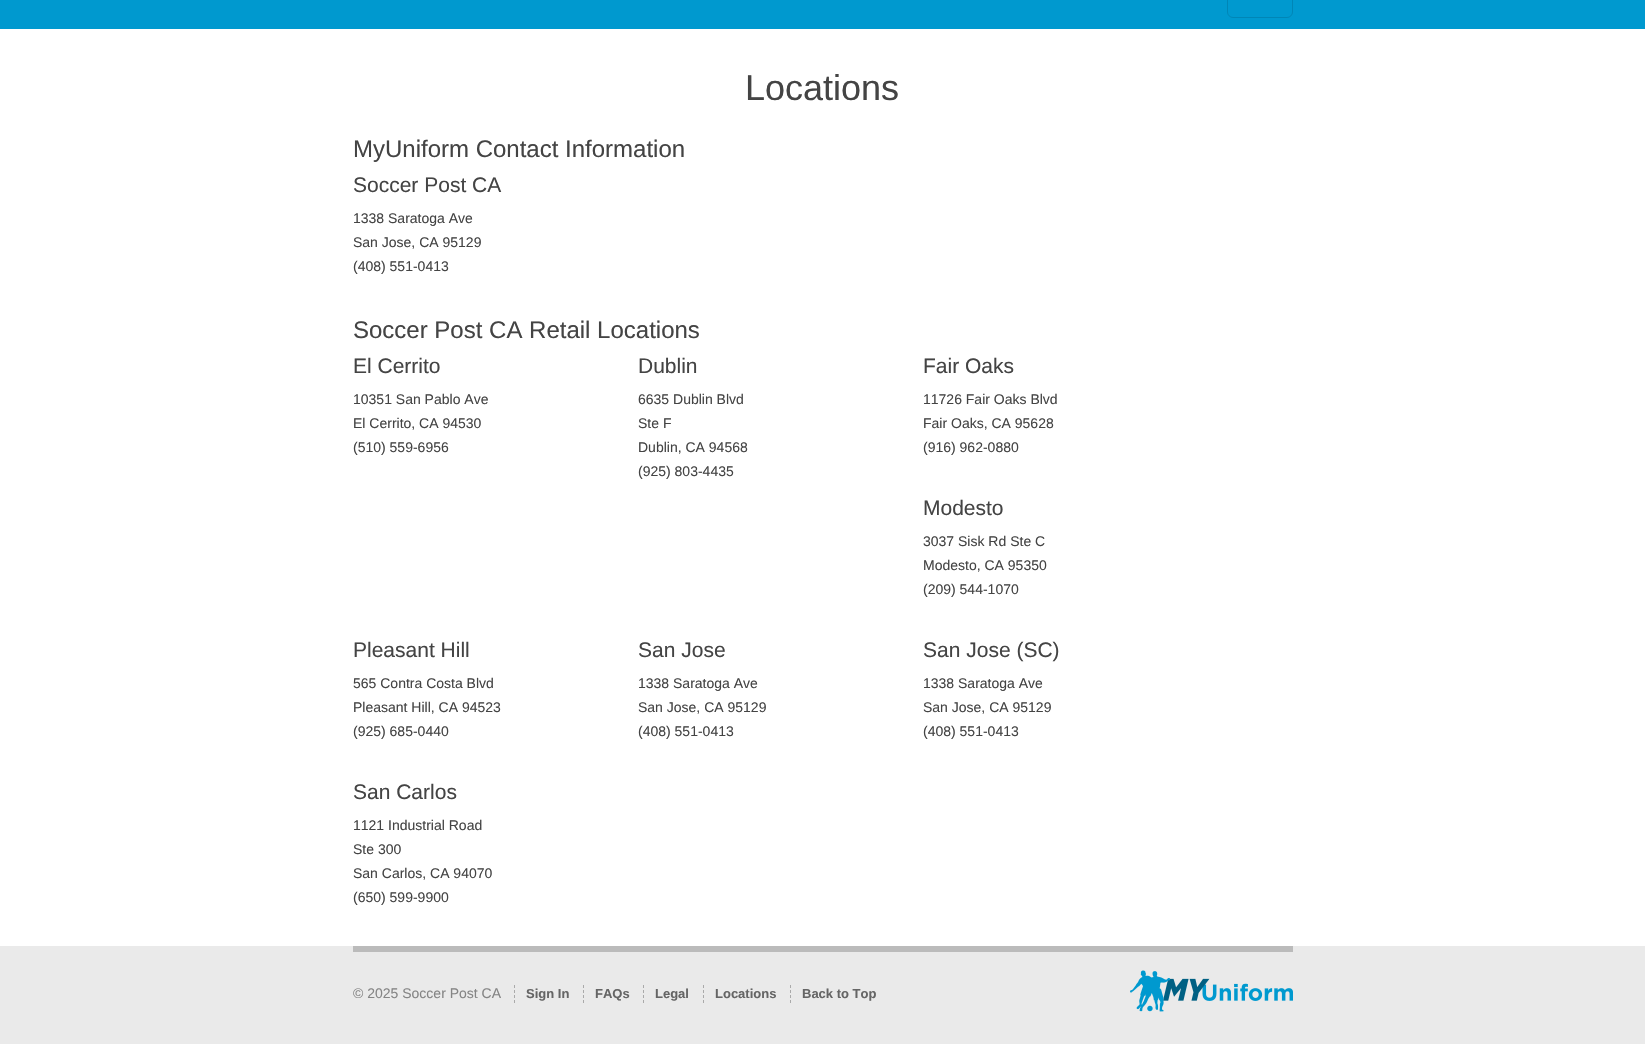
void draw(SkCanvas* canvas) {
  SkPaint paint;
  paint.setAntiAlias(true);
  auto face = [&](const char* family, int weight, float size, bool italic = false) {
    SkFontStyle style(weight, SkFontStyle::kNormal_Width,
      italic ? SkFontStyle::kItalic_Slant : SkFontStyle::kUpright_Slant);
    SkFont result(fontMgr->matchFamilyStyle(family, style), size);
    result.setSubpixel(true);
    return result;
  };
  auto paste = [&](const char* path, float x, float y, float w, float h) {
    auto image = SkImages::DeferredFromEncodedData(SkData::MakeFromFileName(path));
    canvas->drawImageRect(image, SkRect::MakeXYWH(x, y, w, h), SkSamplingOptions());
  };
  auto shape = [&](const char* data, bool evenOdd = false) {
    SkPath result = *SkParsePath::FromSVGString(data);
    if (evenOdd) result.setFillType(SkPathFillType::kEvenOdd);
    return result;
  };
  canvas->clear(0xffeaeaea);
  paint.setColor(0xff0099cf);
  canvas->drawRect(SkRect::MakeXYWH(0, 0, 1645, 29), paint);
  paint.setStroke(true);
  paint.setStrokeWidth(1);
  paint.setColor(0xff0086b6);
  canvas->drawRoundRect(SkRect::MakeXYWH(1227.5f, -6.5f, 65, 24), 5.5f, 5.5f, paint);
  paint.setStroke(false);
  paint.setColor(0xffffffff);
  canvas->drawRect(SkRect::MakeXYWH(0, 29, 1645, 917), paint);
  paint.setColor(0xffbbbbbb);
  canvas->drawRect(SkRect::MakeXYWH(353, 946, 940, 6), paint);
  paint.setStroke(true);
  paint.setColor(0xffaaaaaa);
  paint.setPathEffect(SkDashPathEffect::Make({{3, 2}}, 0));
  canvas->drawPath(shape("M514.5 985V1003"), paint);
  paint.setPathEffect(nullptr);
  paint.setPathEffect(SkDashPathEffect::Make({{3, 2}}, 0));
  canvas->drawPath(shape("M583.5 985V1003"), paint);
  paint.setPathEffect(nullptr);
  paint.setPathEffect(SkDashPathEffect::Make({{3, 2}}, 0));
  canvas->drawPath(shape("M643.5 985V1003"), paint);
  paint.setPathEffect(nullptr);
  paint.setPathEffect(SkDashPathEffect::Make({{3, 2}}, 0));
  canvas->drawPath(shape("M703.5 985V1003"), paint);
  paint.setPathEffect(nullptr);
  paint.setPathEffect(SkDashPathEffect::Make({{3, 2}}, 0));
  canvas->drawPath(shape("M790.5 985V1003"), paint);
  paint.setPathEffect(nullptr);
  paste("img/1.png", 1130, 970, 163, 42);
  auto f0 = face("Liberation Sans", 400, 36);
  paint.setStroke(false);
  paint.setColor(0xff444444);
  canvas->drawString("Locations", 745, 100, f0, paint);
  auto f1 = face("Liberation Sans", 400, 24);
  canvas->drawString("MyUniform Contact Information", 353, 157, f1, paint);
  auto f2 = face("Liberation Sans", 400, 21);
  canvas->drawString("Soccer Post CA", 353, 192, f2, paint);
  auto f3 = face("Liberation Sans", 400, 14);
  {
    const struct { const char* s; float x, y; } items[] = {
      {"1338 Saratoga Ave", 353, 223},
      {"San Jose, CA 95129", 353, 247},
      {"(408) 551-0413", 353, 271},
    };
    for (auto [s, x, y] : items) {
      canvas->drawString(s, x, y, f3, paint);
    }
  }
  canvas->drawString("Soccer Post CA Retail Locations", 353, 338, f1, paint);
  canvas->drawString("El Cerrito", 353, 373, f2, paint);
  {
    const struct { const char* s; float x, y; } items[] = {
      {"10351 San Pablo Ave", 353, 404},
      {"El Cerrito, CA 94530", 353, 428},
      {"(510) 559-6956", 353, 452},
    };
    for (auto [s, x, y] : items) {
      canvas->drawString(s, x, y, f3, paint);
    }
  }
  canvas->drawString("Dublin", 638, 373, f2, paint);
  {
    const struct { const char* s; float x, y; } items[] = {
      {"6635 Dublin Blvd", 638, 404},
      {"Ste F", 638, 428},
      {"Dublin, CA 94568", 638, 452},
      {"(925) 803-4435", 638, 476},
    };
    for (auto [s, x, y] : items) {
      canvas->drawString(s, x, y, f3, paint);
    }
  }
  canvas->drawString("Fair Oaks", 923, 373, f2, paint);
  {
    const struct { const char* s; float x, y; } items[] = {
      {"11726 Fair Oaks Blvd", 923, 404},
      {"Fair Oaks, CA 95628", 923, 428},
      {"(916) 962-0880", 923, 452},
    };
    for (auto [s, x, y] : items) {
      canvas->drawString(s, x, y, f3, paint);
    }
  }
  canvas->drawString("Modesto", 923, 515, f2, paint);
  {
    const struct { const char* s; float x, y; } items[] = {
      {"3037 Sisk Rd Ste C", 923, 546},
      {"Modesto, CA 95350", 923, 570},
      {"(209) 544-1070", 923, 594},
    };
    for (auto [s, x, y] : items) {
      canvas->drawString(s, x, y, f3, paint);
    }
  }
  canvas->drawString("Pleasant Hill", 353, 657, f2, paint);
  {
    const struct { const char* s; float x, y; } items[] = {
      {"565 Contra Costa Blvd", 353, 688},
      {"Pleasant Hill, CA 94523", 353, 712},
      {"(925) 685-0440", 353, 736},
    };
    for (auto [s, x, y] : items) {
      canvas->drawString(s, x, y, f3, paint);
    }
  }
  canvas->drawString("San Jose", 638, 657, f2, paint);
  {
    const struct { const char* s; float x, y; } items[] = {
      {"1338 Saratoga Ave", 638, 688},
      {"San Jose, CA 95129", 638, 712},
      {"(408) 551-0413", 638, 736},
    };
    for (auto [s, x, y] : items) {
      canvas->drawString(s, x, y, f3, paint);
    }
  }
  canvas->drawString("San Jose (SC)", 923, 657, f2, paint);
  {
    const struct { const char* s; float x, y; } items[] = {
      {"1338 Saratoga Ave", 923, 688},
      {"San Jose, CA 95129", 923, 712},
      {"(408) 551-0413", 923, 736},
    };
    for (auto [s, x, y] : items) {
      canvas->drawString(s, x, y, f3, paint);
    }
  }
  canvas->drawString("San Carlos", 353, 799, f2, paint);
  {
    const struct { const char* s; float x, y; } items[] = {
      {"1121 Industrial Road", 353, 830},
      {"Ste 300", 353, 854},
      {"San Carlos, CA 94070", 353, 878},
      {"(650) 599-9900", 353, 902},
    };
    for (auto [s, x, y] : items) {
      canvas->drawString(s, x, y, f3, paint);
    }
  }
  paint.setColor(0xff858585);
  canvas->drawString("© 2025 Soccer Post CA", 353, 998, f3, paint);
  auto f4 = face("Liberation Sans", 700, 13);
  paint.setColor(0xff656565);
  {
    const struct { const char* s; float x, y; } items[] = {
      {"Sign In", 526, 998},
      {"FAQs", 595, 998},
      {"Legal", 655, 998},
      {"Locations", 715, 998},
      {"Back to Top", 802, 998},
    };
    for (auto [s, x, y] : items) {
      canvas->drawString(s, x, y, f4, paint);
    }
  }
}
